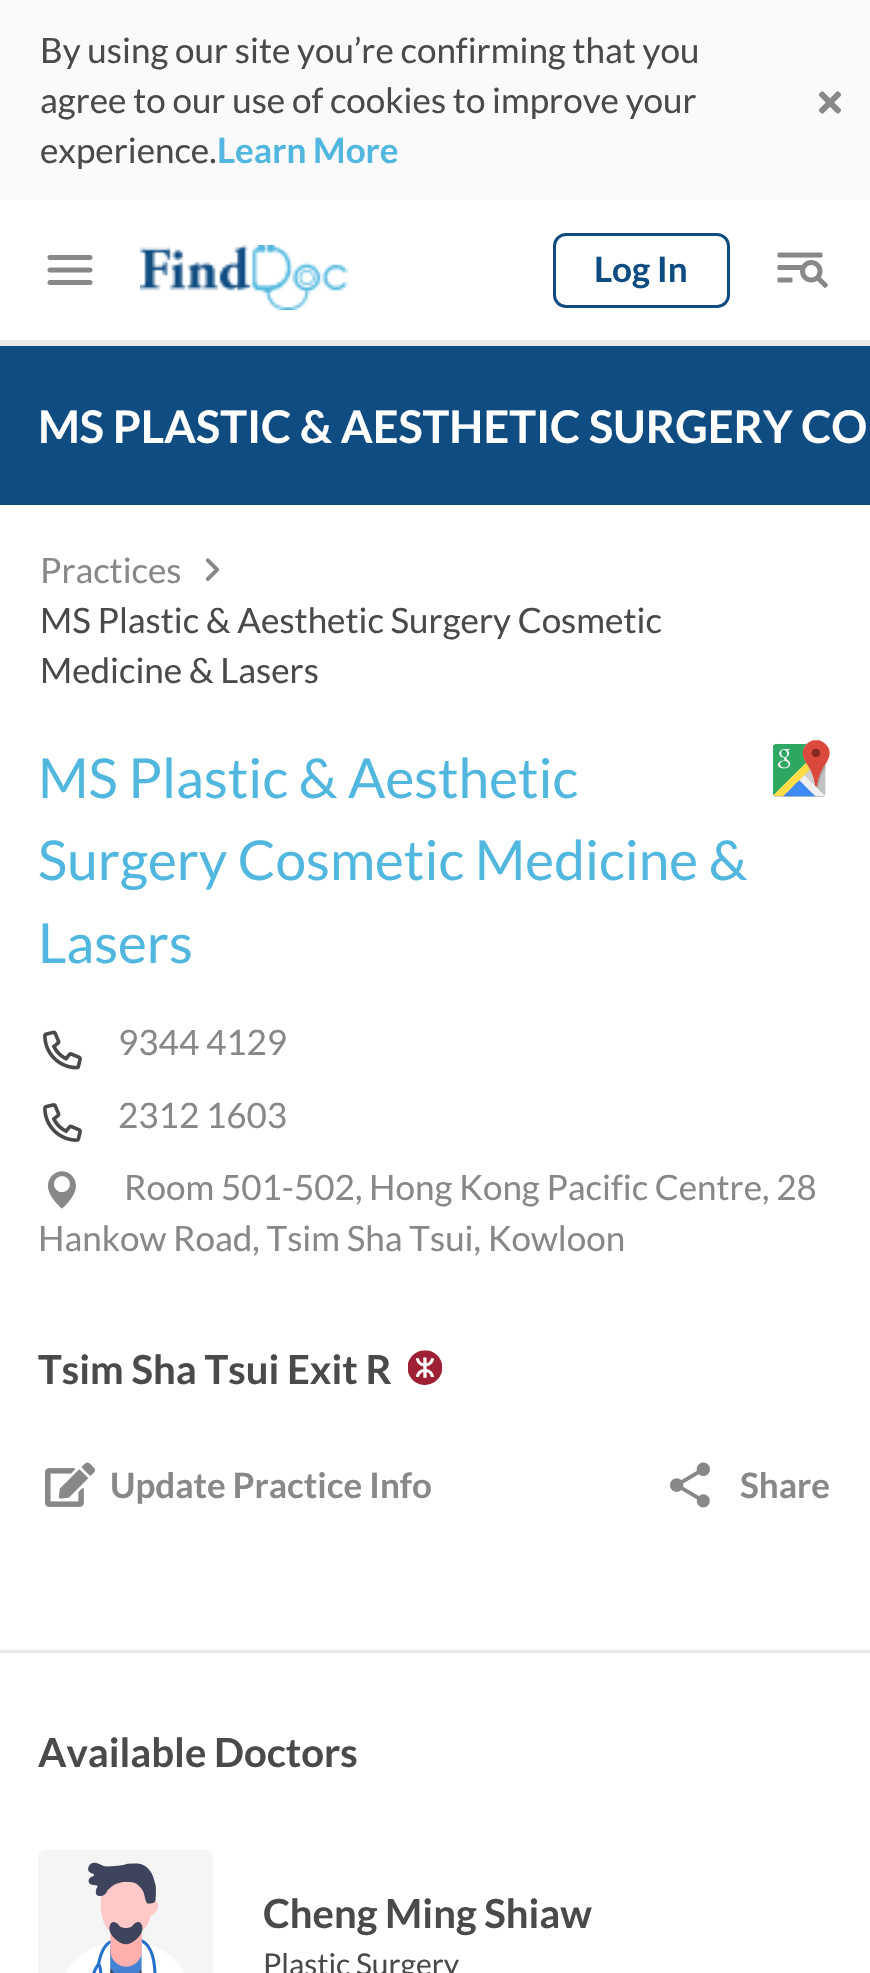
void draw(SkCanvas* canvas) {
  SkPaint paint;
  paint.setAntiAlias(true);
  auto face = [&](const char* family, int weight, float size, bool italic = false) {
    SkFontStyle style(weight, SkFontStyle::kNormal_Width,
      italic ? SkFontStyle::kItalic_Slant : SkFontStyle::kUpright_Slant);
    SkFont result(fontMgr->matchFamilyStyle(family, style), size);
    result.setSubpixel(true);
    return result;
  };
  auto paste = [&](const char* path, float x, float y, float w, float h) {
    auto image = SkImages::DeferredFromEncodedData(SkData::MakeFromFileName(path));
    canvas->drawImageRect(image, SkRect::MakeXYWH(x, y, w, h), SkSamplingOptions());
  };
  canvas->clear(0xffffffff);
  paint.setColor(0xfffafafa);
  canvas->drawRect(SkRect::MakeXYWH(0, 0, 870, 200), paint);
  paste("img/1.png", 818, 91, 24, 23);
  paste("img/2.png", 47, 255, 46, 30);
  paste("img/3.png", 140, 245, 208, 65);
  paint.setStroke(true);
  paint.setStrokeWidth(3);
  paint.setColor(0xff0f4c81);
  canvas->drawRoundRect(SkRect::MakeXYWH(554.5f, 234.5f, 174, 72), 11.5f, 11.5f, paint);
  paste("img/4.png", 777, 252, 51, 36);
  paint.setStroke(false);
  paint.setColor(0xffe9e9e9);
  canvas->drawRect(SkRect::MakeXYWH(0, 340, 870, 6), paint);
  paint.setColor(0xff0f4c81);
  canvas->drawRect(SkRect::MakeXYWH(0, 346, 870, 159), paint);
  paste("img/5.png", 205, 558, 15, 23);
  paint.setColor(0xffe9e9e9);
  canvas->drawRect(SkRect::MakeXYWH(0, 1650, 870, 3), paint);
  paste("img/6.png", 773, 740, 57, 57);
  paste("img/7.png", 43, 1030, 39, 40);
  paste("img/8.png", 43, 1103, 39, 39);
  paste("img/9.png", 47, 1171, 29, 38);
  paste("img/10.png", 408, 1350, 35, 35);
  paste("img/11.png", 45, 1462, 50, 45);
  paste("img/12.png", 670, 1462, 40, 46);
  paste("img/13.png", 38, 1850, 175, 123);
  auto f0 = face("Lato", 400, 35);
  paint.setColor(0xff4a4a4a);
  {
    const struct { const char* s; float x, y; } items[] = {
      {"By using our site you’re confirming that you", 40, 63},
      {"agree to our use of cookies to improve your", 40, 113},
      {"experience.", 40, 163},
    };
    for (auto [s, x, y] : items) {
      canvas->drawString(s, x, y, f0, paint);
    }
  }
  auto f1 = face("Lato", 700, 35);
  paint.setColor(0xff51b7de);
  canvas->drawString("Learn More", 217, 163, f1, paint);
  paint.setColor(0xff0f4c81);
  canvas->drawString("Log In", 594, 282, f1, paint);
  auto f2 = face("Lato", 700, 45);
  paint.setColor(0xffffffff);
  canvas->drawString("MS PLASTIC & AESTHETIC SURGERY CO", 38, 443, f2, paint);
  paint.setColor(0xff888888);
  canvas->drawString("Practices", 40, 583, f0, paint);
  paint.setColor(0xff4a4a4a);
  canvas->drawString("MS Plastic & Aesthetic Surgery Cosmetic", 40, 633, f0, paint);
  canvas->drawString("Medicine & Lasers", 40, 683, f0, paint);
  auto f3 = face("Lato", 400, 55);
  paint.setColor(0xff51b7de);
  {
    const struct { const char* s; float x, y; } items[] = {
      {"MS Plastic & Aesthetic", 38, 798},
      {"Surgery Cosmetic Medicine &", 38, 880},
      {"Lasers", 38, 963},
    };
    for (auto [s, x, y] : items) {
      canvas->drawString(s, x, y, f3, paint);
    }
  }
  paint.setColor(0xff888888);
  {
    const struct { const char* s; float x, y; } items[] = {
      {"9344 4129", 118, 1055},
      {"2312 1603", 118, 1128},
      {"Room 501-502, Hong Kong Pacific Centre, 28", 124, 1200},
      {"Hankow Road, Tsim Sha Tsui, Kowloon", 38, 1251},
    };
    for (auto [s, x, y] : items) {
      canvas->drawString(s, x, y, f0, paint);
    }
  }
  auto f4 = face("Lato", 700, 40);
  paint.setColor(0xff4a4a4a);
  canvas->drawString("Tsim Sha Tsui Exit R", 38, 1384, f4, paint);
  paint.setColor(0xff888888);
  canvas->drawString("Update Practice Info", 110, 1498, f1, paint);
  canvas->drawString("Share", 740, 1498, f1, paint);
  paint.setColor(0xff4a4a4a);
  canvas->drawString("Available Doctors", 38, 1767, f4, paint);
  canvas->drawString("Cheng Ming Shiaw", 263, 1928, f4, paint);
  auto f5 = face("Lato", 400, 30);
  canvas->drawString("Plastic Surgery", 263, 1975, f5, paint);
}
